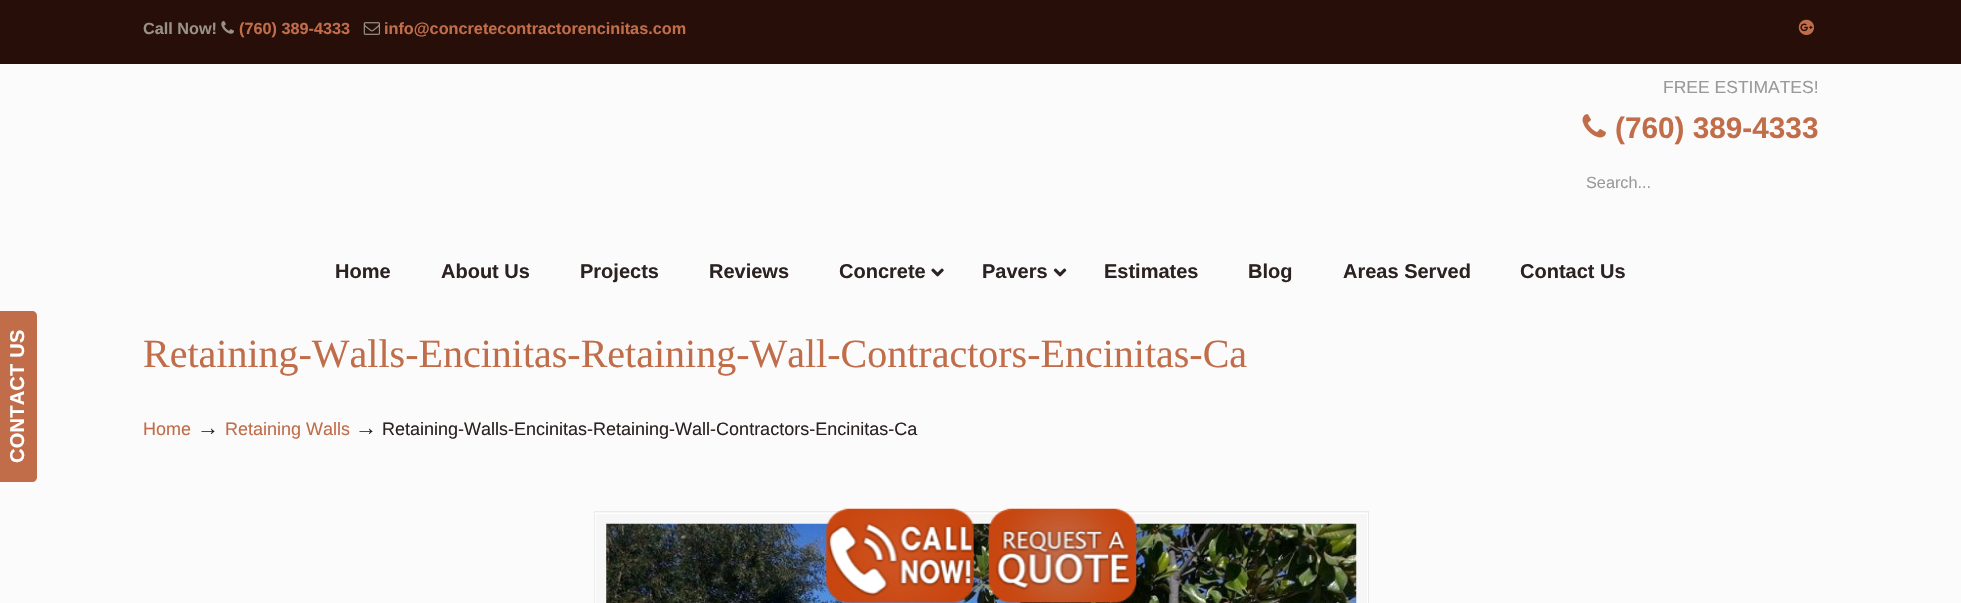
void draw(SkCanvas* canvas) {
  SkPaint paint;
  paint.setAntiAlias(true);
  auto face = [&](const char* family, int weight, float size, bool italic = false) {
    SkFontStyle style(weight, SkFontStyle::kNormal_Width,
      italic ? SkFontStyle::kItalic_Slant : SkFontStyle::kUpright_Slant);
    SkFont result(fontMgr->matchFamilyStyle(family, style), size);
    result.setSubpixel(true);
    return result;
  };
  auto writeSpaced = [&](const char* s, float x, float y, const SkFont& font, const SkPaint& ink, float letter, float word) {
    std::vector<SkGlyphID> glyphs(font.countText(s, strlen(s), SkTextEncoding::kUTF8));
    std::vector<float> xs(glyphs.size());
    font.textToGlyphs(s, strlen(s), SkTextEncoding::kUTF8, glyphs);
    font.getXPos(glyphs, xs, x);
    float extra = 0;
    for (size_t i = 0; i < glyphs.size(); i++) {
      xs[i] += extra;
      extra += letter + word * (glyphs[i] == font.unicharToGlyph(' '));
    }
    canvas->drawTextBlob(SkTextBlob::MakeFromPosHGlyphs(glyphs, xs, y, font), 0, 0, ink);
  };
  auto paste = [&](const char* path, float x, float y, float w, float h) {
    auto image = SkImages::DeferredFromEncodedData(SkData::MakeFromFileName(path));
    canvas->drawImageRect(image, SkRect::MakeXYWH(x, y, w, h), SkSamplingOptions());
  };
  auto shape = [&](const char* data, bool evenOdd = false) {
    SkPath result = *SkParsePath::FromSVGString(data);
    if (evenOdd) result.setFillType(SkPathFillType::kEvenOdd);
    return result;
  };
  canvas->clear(0xfffbfbfb);
  paint.setColor(0xffc16d4a);
  canvas->drawPath(shape("M-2 482V311H32C35 311 37 313 37 316V477C37 480 35 482 32 482Z"), paint);
  paint.setColor(0xff270e09);
  canvas->drawRect(SkRect::MakeXYWH(0, 0, 1961, 64), paint);
  paste("img/1.png", 221, 21, 13, 13);
  paste("img/2.png", 363, 22, 17, 13);
  paste("img/3.png", 1798, 19, 17, 16);
  paste("img/4.png", 1582, 114, 24, 24);
  paste("img/5.png", 931, 268, 13, 9);
  paste("img/6.png", 1053, 268, 14, 9);
  paint.setColor(0xfff6f6f6);
  canvas->drawRect(SkRect::MakeXYWH(594.5f, 511.5f, 774, 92), paint);
  paint.setStroke(true);
  paint.setStrokeWidth(1);
  paint.setColor(0xffeaeaea);
  canvas->drawRect(SkRect::MakeXYWH(594.5f, 511.5f, 774, 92), paint);
  paint.setColor(0xffffffff);
  canvas->drawRect(SkRect::MakeXYWH(595.5f, 513.5f, 772, 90), paint);
  paste("img/7.png", 606, 523, 751, 80);
  paste("img/8.png", 826, 508, 148, 95);
  paste("img/9.png", 988, 508, 149, 95);
  auto f0 = face("Liberation Sans", 700, 20);
  paint.setStroke(false);
  canvas->save();
  canvas->rotate(-90, 24, 463);
  writeSpaced("CONTACT US", 24, 463, f0, paint, 0.25f, 0);
  canvas->restore();
  auto f1 = face("Liberation Sans", 700, 16.25f);
  paint.setColor(0xff989188);
  canvas->drawString("Call Now!", 143, 34, f1, paint);
  paint.setColor(0xffc16d4a);
  canvas->drawString("(760) 389-4333", 239, 34, f1, paint);
  canvas->drawString("info@concretecontractorencinitas.com", 384, 34, f1, paint);
  auto f2 = face("Liberation Sans", 400, 17.5f);
  paint.setColor(0xff999999);
  canvas->drawString("FREE ESTIMATES!", 1663, 93, f2, paint);
  auto f3 = face("Liberation Sans", 700, 29.75f);
  paint.setColor(0xffc16d4a);
  canvas->drawString("(760) 389-4333", 1615, 138, f3, paint);
  auto f4 = face("Liberation Sans", 400, 16.25f);
  paint.setColor(0xff999999);
  canvas->drawString("Search...", 1586, 188, f4, paint);
  paint.setColor(0xff2d2222);
  {
    const struct { const char* s; float x, y; } items[] = {
      {"Home", 335, 278},
      {"About Us", 441, 278},
      {"Projects", 580, 278},
      {"Reviews", 709, 278},
      {"Concrete", 839, 278},
      {"Pavers", 982, 278},
      {"Estimates", 1104, 278},
      {"Blog", 1248, 278},
      {"Areas Served", 1343, 278},
      {"Contact Us", 1520, 278},
    };
    for (auto [s, x, y] : items) {
      canvas->drawString(s, x, y, f0, paint);
    }
  }
  auto f5 = face("Liberation Serif", 400, 40);
  paint.setColor(0xffc16d4a);
  canvas->drawString("Retaining-Walls-Encinitas-Retaining-Wall-Contractors-Encinitas-Ca", 143, 367, f5, paint);
  auto f6 = face("Liberation Sans", 400, 18);
  canvas->drawString("Home", 143, 435, f6, paint);
  auto f7 = face("Liberation Sans", 400, 22);
  paint.setColor(0xff2d2222);
  canvas->drawString("→", 197, 435, f7, paint);
  paint.setColor(0xffc16d4a);
  canvas->drawString("Retaining Walls", 225, 435, f6, paint);
  paint.setColor(0xff2d2222);
  canvas->drawString("→", 355, 435, f7, paint);
  canvas->drawString("Retaining-Walls-Encinitas-Retaining-Wall-Contractors-Encinitas-Ca", 382, 435, f6, paint);
}
